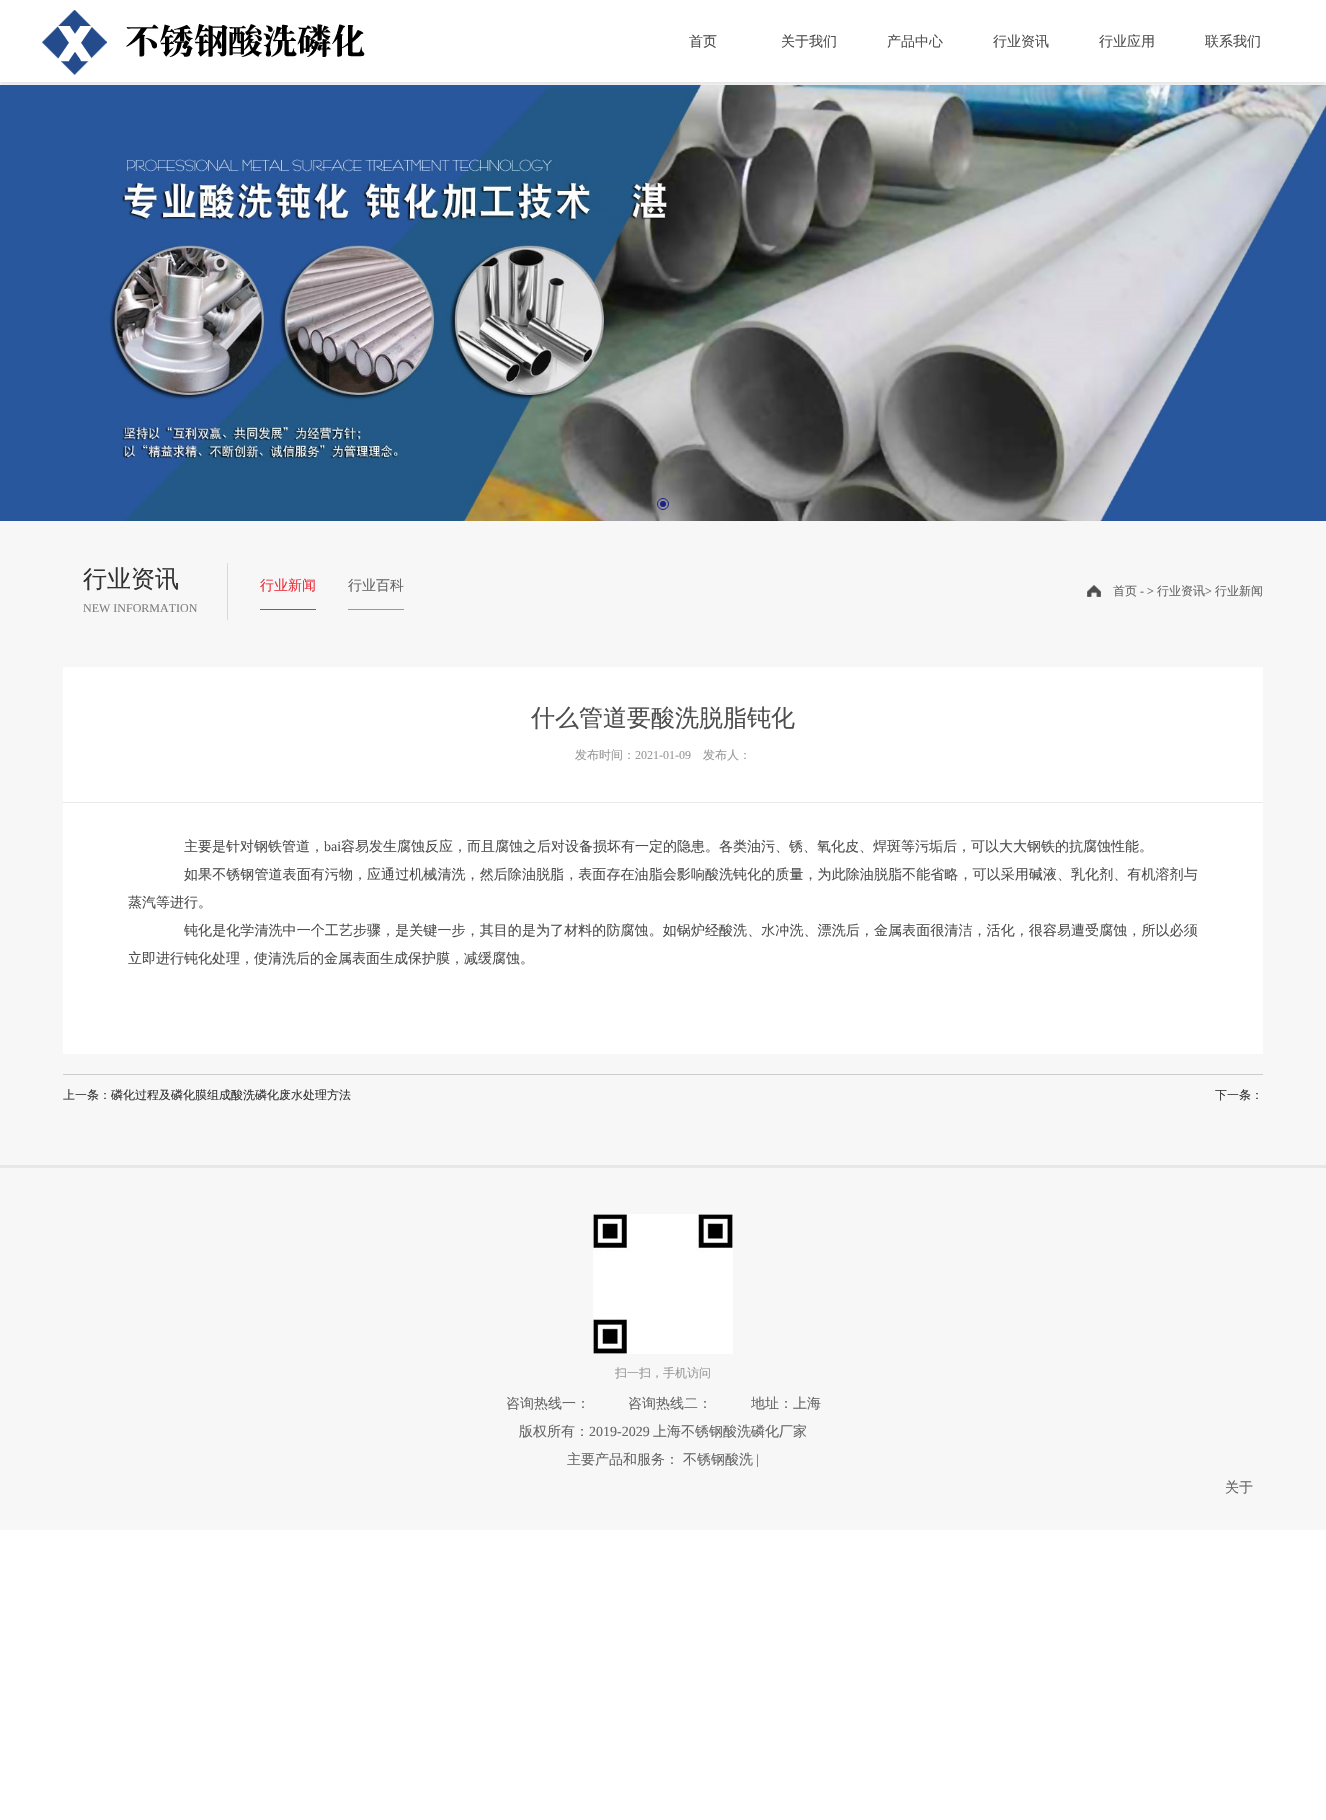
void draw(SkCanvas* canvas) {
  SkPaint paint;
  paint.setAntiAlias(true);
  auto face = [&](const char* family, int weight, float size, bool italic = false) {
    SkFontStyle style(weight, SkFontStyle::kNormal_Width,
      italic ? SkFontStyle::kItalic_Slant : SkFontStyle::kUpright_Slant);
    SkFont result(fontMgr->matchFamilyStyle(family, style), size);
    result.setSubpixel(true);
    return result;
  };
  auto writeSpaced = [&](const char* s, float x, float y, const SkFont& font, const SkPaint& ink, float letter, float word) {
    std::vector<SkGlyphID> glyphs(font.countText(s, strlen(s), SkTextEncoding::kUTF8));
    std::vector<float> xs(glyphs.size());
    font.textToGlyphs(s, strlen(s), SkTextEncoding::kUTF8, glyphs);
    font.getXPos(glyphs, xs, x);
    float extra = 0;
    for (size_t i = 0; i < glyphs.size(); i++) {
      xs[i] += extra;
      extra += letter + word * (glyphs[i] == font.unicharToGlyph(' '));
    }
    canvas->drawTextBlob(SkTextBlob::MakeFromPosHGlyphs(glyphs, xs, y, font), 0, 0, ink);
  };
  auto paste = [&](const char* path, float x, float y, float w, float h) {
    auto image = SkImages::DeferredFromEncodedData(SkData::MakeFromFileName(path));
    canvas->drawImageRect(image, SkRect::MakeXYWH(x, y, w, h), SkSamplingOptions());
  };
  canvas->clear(0xffffffff);
  canvas->save();
  canvas->clipRect(SkRect::MakeXYWH(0, 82, 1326, 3));
  paint.setColor(0xffe6e6e6);
  paint.setMaskFilter(SkMaskFilter::MakeBlur(kNormal_SkBlurStyle, 1.5f));
  canvas->drawRect(SkRect::MakeXYWH(0, 3, 1326, 82), paint);
  paint.setMaskFilter(nullptr);
  canvas->restore();
  paste("img/1.png", 42, 10, 323, 65);
  paste("img/2.png", 0, 85, 1326, 436);
  paint.setStroke(true);
  paint.setStrokeWidth(1);
  paint.setColor(0xff1d2088);
  canvas->drawCircle(663, 504, 5.5f, paint);
  paint.setStroke(false);
  canvas->drawCircle(663, 504, 3, paint);
  {
    const struct { float x, y, w, h; SkColor color; } items[] = {
      {0, 521, 1326, 644, 0xfff7f7f7},
      {227, 563, 1, 57, 0xffd9d9d9},
      {260, 609, 56, 1, 0xffeb2f3c},
      {348, 609, 56, 1, 0xff999999},
    };
    for (auto [x, y, w, h, color] : items) {
      paint.setColor(color);
      canvas->drawRect(SkRect::MakeXYWH(x, y, w, h), paint);
    }
  }
  paste("img/3.png", 1087, 585, 14, 12);
  {
    const struct { float x, y, w, h; SkColor color; } items[] = {
      {63, 667, 1200, 387, 0xffffffff},
      {63, 802, 1200, 1, 0xffeaeaea},
      {63, 1074, 1200, 1, 0xffcccccc},
      {0, 1168, 1326, 362, 0xfff7f7f7},
      {0, 1165, 1326, 3, 0xffe7e7e7},
    };
    for (auto [x, y, w, h, color] : items) {
      paint.setColor(color);
      canvas->drawRect(SkRect::MakeXYWH(x, y, w, h), paint);
    }
  }
  paste("img/4.png", 593, 1214, 140, 140);
  auto f0 = face("WenQuanYi Zen Hei", 500, 14);
  paint.setColor(0xff4e4e4e);
  {
    const struct { const char* s; float x, y; } items[] = {
      {"首页", 689, 46},
      {"关于我们", 781, 46},
      {"产品中心", 887, 46},
      {"行业资讯", 993, 46},
      {"行业应用", 1099, 46},
      {"联系我们", 1205, 46},
    };
    for (auto [s, x, y] : items) {
      canvas->drawString(s, x, y, f0, paint);
    }
  }
  auto f1 = face("WenQuanYi Zen Hei", 500, 24);
  paint.setColor(0xff333333);
  canvas->drawString("行业资讯", 83, 587, f1, paint);
  auto f2 = face("Liberation Serif", 400, 12);
  paint.setColor(0xff7f7f7f);
  canvas->drawString("NEW INFORMATION", 83, 612, f2, paint);
  paint.setColor(0xffeb2f3c);
  canvas->drawString("行业新闻", 260, 590, f0, paint);
  paint.setColor(0xff666666);
  canvas->drawString("行业百科", 348, 590, f0, paint);
  auto f3 = face("WenQuanYi Zen Hei", 500, 12);
  canvas->drawString("首页", 1113, 595, f3, paint);
  canvas->drawString("- >", 1140, 595, f2, paint);
  canvas->drawString("行业资讯", 1157, 595, f3, paint);
  canvas->drawString(">", 1205, 595, f2, paint);
  canvas->drawString("行业新闻", 1215, 595, f3, paint);
  paint.setColor(0xff4e4e4e);
  canvas->drawString("什么管道要酸洗脱脂钝化", 531, 726, f1, paint);
  paint.setColor(0xff999999);
  canvas->drawString("发布时间：", 575, 759, f3, paint);
  canvas->drawString("2021-01-09", 635, 759, f2, paint);
  canvas->drawString("发布人：", 703, 759, f3, paint);
  paint.setColor(0xff4e4e4e);
  canvas->drawString("主要是针对钢铁管道，", 184, 851, f0, paint);
  auto f4 = face("Liberation Serif", 400, 14);
  canvas->drawString("bai", 324, 851, f4, paint);
  canvas->drawString("容易发生腐蚀反应，而且腐蚀之后对设备损坏有一定的隐患。各类油污、锈、氧化皮、焊斑等污垢后，可以大大钢铁的抗腐蚀性能。", 341, 851, f0, paint);
  writeSpaced("如果不锈钢管道表面有污物，应通过机械清洗，然后除油脱脂，表面存在油脂会影响酸洗钝化的质量，为此除油脱脂不能省略，可以采用碱液、乳化剂、有机溶剂与", 184, 879, f0, paint, 0.08f, 0);
  canvas->drawString("蒸汽等进行。", 128, 907, f0, paint);
  writeSpaced("钝化是化学清洗中一个工艺步骤，是关键一步，其目的是为了材料的防腐蚀。如锅炉经酸洗、水冲洗、漂洗后，金属表面很清洁，活化，很容易遭受腐蚀，所以必须", 184, 935, f0, paint, 0.08f, 0);
  canvas->drawString("立即进行钝化处理，使清洗后的金属表面生成保护膜，减缓腐蚀。", 128, 963, f0, paint);
  paint.setColor(0xff333333);
  canvas->drawString("上一条：磷化过程及磷化膜组成酸洗磷化废水处理方法", 63, 1099, f3, paint);
  canvas->drawString("下一条：", 1215, 1099, f3, paint);
  paint.setColor(0xff999999);
  canvas->drawString("扫一扫，手机访问", 615, 1377, f3, paint);
  paint.setColor(0xff666666);
  {
    const struct { const char* s; float x, y; } items[] = {
      {"咨询热线一：", 506, 1408},
      {"咨询热线二：", 628, 1408},
      {"地址：上海", 751, 1408},
      {"版权所有：", 519, 1436},
    };
    for (auto [s, x, y] : items) {
      canvas->drawString(s, x, y, f0, paint);
    }
  }
  canvas->drawString("2019-2029", 589, 1436, f4, paint);
  {
    const struct { const char* s; float x, y; } items[] = {
      {"上海不锈钢酸洗磷化厂家", 653, 1436},
      {"主要产品和服务：", 567, 1464},
      {"不锈钢酸洗", 683, 1464},
    };
    for (auto [s, x, y] : items) {
      canvas->drawString(s, x, y, f0, paint);
    }
  }
  canvas->drawString("|", 756, 1464, f4, paint);
  writeSpaced("关于", 1225, 1492, f0, paint, 0, -1);
}
